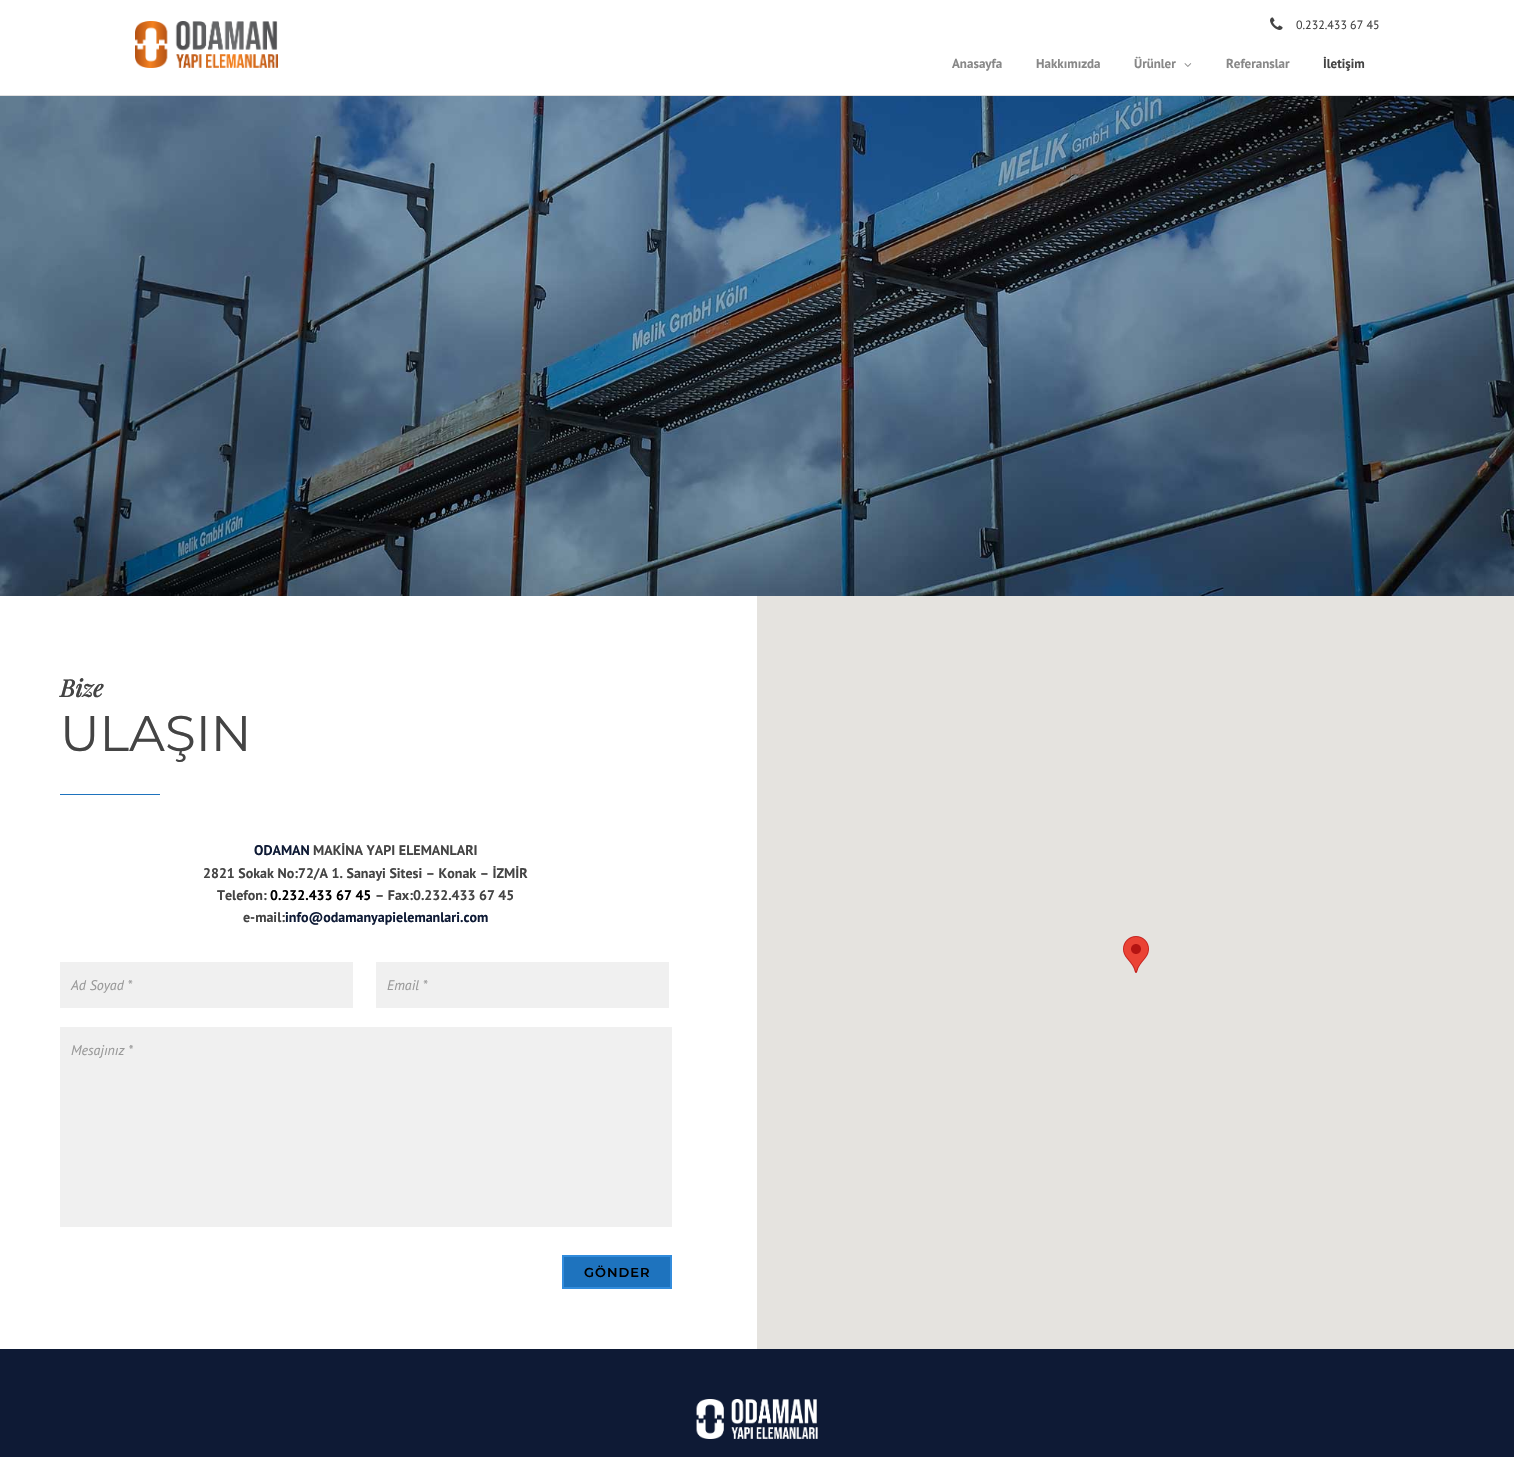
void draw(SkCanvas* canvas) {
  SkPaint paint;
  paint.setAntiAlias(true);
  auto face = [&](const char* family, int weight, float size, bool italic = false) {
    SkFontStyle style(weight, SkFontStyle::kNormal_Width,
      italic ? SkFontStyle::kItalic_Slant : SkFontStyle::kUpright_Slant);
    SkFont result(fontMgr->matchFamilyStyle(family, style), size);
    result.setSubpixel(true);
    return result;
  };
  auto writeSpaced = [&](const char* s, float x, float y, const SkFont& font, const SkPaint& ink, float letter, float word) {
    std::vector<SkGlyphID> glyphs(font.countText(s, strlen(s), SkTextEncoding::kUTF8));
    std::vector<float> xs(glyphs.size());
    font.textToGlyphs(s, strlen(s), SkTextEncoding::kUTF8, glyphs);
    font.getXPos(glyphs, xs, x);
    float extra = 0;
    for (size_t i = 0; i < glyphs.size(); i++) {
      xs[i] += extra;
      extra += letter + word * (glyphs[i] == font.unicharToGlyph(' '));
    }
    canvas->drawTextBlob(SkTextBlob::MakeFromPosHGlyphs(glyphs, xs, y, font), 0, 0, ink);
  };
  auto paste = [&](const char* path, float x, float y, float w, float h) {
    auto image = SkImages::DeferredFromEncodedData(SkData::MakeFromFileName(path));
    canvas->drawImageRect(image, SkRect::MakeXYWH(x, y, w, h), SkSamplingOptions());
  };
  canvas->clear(0xffffffff);
  paint.setColor(0xffe1e1e1);
  canvas->drawRect(SkRect::MakeXYWH(0, 95, 1514, 1), paint);
  paste("img/1.png", 135, 21, 143, 47);
  paste("img/2.png", 1270, 17, 13, 13);
  paste("img/3.png", 1184, 63, 8, 4);
  paste("img/4.png", 0, 96, 1514, 500);
  {
    const struct { float x, y, w, h; SkColor color; } items[] = {
      {60, 794, 100, 1, 0xff1e73be},
      {60, 962, 293, 46, 0xfff0f0f0},
      {376, 962, 293, 46, 0xfff0f0f0},
      {60, 1027, 612, 200, 0xfff0f0f0},
    };
    for (auto [x, y, w, h, color] : items) {
      paint.setColor(color);
      canvas->drawRect(SkRect::MakeXYWH(x, y, w, h), paint);
    }
  }
  paint.setColor(0xff1e73be);
  canvas->drawRect(SkRect::MakeXYWH(563, 1256, 108, 32), paint);
  paint.setStroke(true);
  paint.setStrokeWidth(2);
  paint.setColor(0xff328cdc);
  canvas->drawRect(SkRect::MakeXYWH(563, 1256, 108, 32), paint);
  paint.setStroke(false);
  paint.setColor(0xffe5e3df);
  canvas->drawRect(SkRect::MakeXYWH(757, 596, 757, 753), paint);
  paste("img/5.png", 1123, 936, 26, 37);
  paint.setColor(0xff0e1a35);
  canvas->drawRect(SkRect::MakeXYWH(0, 1349, 1514, 108), paint);
  paste("img/6.png", 696, 1399, 122, 40);
  auto f0 = face("PT Sans", 400, 12);
  paint.setColor(0xff444444);
  canvas->drawString("0.232.433 67 45", 1296, 29, f0, paint);
  auto f1 = face("PT Sans", 700, 13);
  paint.setColor(0xff888888);
  {
    const struct { const char* s; float x, y; } items[] = {
      {"Anasayfa", 952, 68},
      {"Hakkımızda", 1036, 68},
      {"Ürünler", 1134, 68},
      {"Referanslar", 1226, 68},
    };
    for (auto [s, x, y] : items) {
      canvas->drawString(s, x, y, f1, paint);
    }
  }
  paint.setColor(0xff444444);
  canvas->drawString("İletişim", 1323, 68, f1, paint);
  auto f2 = face("Playfair Display", 700, 24, true);
  canvas->drawString("Bize", 60, 697, f2, paint);
  auto f3 = face("Montserrat", 400, 50);
  canvas->drawString("ULAŞIN", 60, 751, f3, paint);
  auto f4 = face("PT Sans", 700, 14);
  paint.setColor(0xff0e1a35);
  canvas->drawString("ODAMAN", 254, 855, f4, paint);
  paint.setColor(0xff444444);
  {
    const struct { const char* s; float x, y; } items[] = {
      {"MAKİNA YAPI ELEMANLARI", 313, 855},
      {"2821 Sokak No:72/A 1. Sanayi Sitesi – Konak – İZMİR", 203, 878},
      {"Telefon:", 217, 900},
    };
    for (auto [s, x, y] : items) {
      canvas->drawString(s, x, y, f4, paint);
    }
  }
  paint.setColor(0xff000000);
  canvas->drawString("0.232.433 67 45", 270, 900, f4, paint);
  paint.setColor(0xff444444);
  canvas->drawString("– Fax:0.232.433 67 45", 375, 900, f4, paint);
  canvas->drawString("e-mail:", 243, 922, f4, paint);
  paint.setColor(0xff0e1a35);
  canvas->drawString("info@odamanyapielemanlari.com", 285, 922, f4, paint);
  auto f5 = face("PT Sans", 400, 14, true);
  paint.setColor(0xff999999);
  {
    const struct { const char* s; float x, y; } items[] = {
      {"Ad Soyad *", 71, 990},
      {"Email *", 387, 990},
      {"Mesajınız *", 71, 1055},
    };
    for (auto [s, x, y] : items) {
      canvas->drawString(s, x, y, f5, paint);
    }
  }
  auto f6 = face("Montserrat", 600, 13);
  paint.setColor(0xff000000);
  writeSpaced("GÖNDER", 584, 1277, f6, paint, 1, 0);
}
